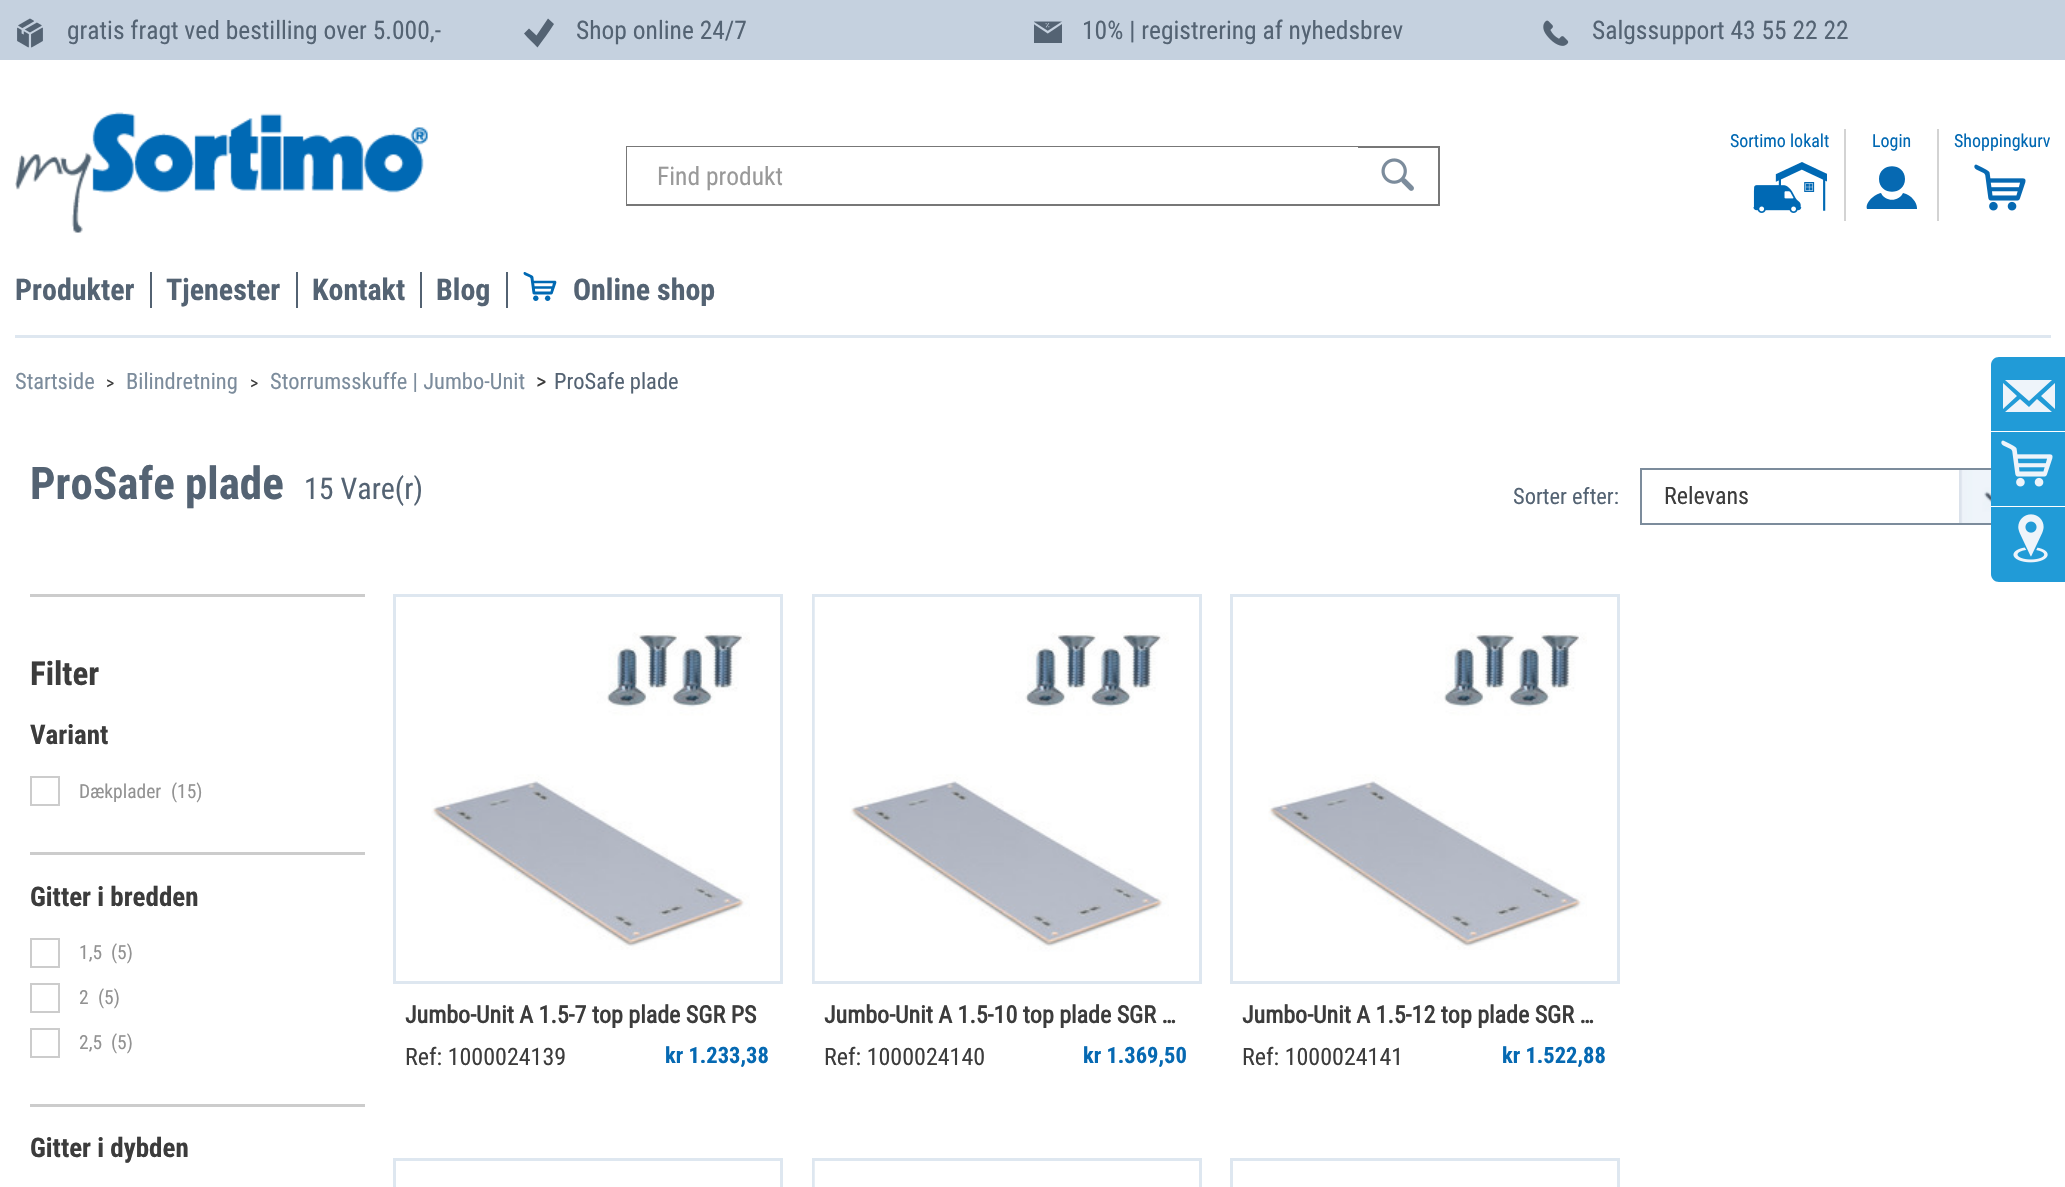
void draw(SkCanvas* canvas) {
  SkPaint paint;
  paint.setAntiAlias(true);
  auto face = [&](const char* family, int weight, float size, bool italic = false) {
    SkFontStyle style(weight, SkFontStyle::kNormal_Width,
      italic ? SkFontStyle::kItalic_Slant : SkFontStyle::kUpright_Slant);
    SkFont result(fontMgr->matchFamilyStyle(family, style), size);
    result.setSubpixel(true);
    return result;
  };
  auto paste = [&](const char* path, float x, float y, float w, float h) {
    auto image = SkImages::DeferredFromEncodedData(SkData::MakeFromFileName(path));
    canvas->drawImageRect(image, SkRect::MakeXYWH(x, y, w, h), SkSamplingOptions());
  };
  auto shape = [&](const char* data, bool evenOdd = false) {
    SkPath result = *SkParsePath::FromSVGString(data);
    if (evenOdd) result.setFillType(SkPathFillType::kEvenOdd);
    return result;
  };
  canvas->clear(0xffffffff);
  paint.setColor(0xffc5d1df);
  canvas->drawRect(SkRect::MakeXYWH(0, 0, 2065, 60), paint);
  paste("img/1.png", 17, 18, 26, 30);
  paint.setColor(0xff546373);
  canvas->drawPath(shape("M554 24C549 32 543 40 537.5 47.5C532.5 42 528.5 39 524 33.5L529 28.5L536.5 35.5L548 18.5Z"), paint);
  paste("img/2.png", 1034, 21, 28, 22);
  paste("img/3.png", 1543, 20, 26, 26);
  paste("img/4.png", 15, 112, 413, 121);
  paint.setColor(0xffd3d3d3);
  canvas->drawRect(SkRect::MakeXYWH(1844, 129, 2, 92), paint);
  paste("img/5.png", 1753, 162, 74, 51);
  canvas->drawRect(SkRect::MakeXYWH(1937, 129, 2, 92), paint);
  paint.setColor(0xff0669b2);
  canvas->drawPath(shape("M1905 179C1905 196 1879 196 1879 179C1879 162 1905 162 1905 179ZM1917 208C1917 203 1912 195 1903 193C1899 202 1885 202 1881 193C1875 194 1865 202 1867 209H1917Z", true), paint);
  paste("img/6.png", 1974, 164, 52, 47);
  paint.setStroke(true);
  paint.setStrokeWidth(2);
  paint.setColor(0xff777777);
  canvas->drawRect(SkRect::MakeXYWH(627, 147, 812, 58), paint);
  paint.setStroke(false);
  paint.setColor(0xffffffff);
  canvas->drawRect(SkRect::MakeXYWH(627, 147, 731, 57), paint);
  paste("img/7.png", 1381, 158, 33, 33);
  {
    const struct { float x, y, w, h; SkColor color; } items[] = {
      {15, 335, 2036, 3, 0xffdee7f0},
      {150, 272, 2, 36, 0xff536272},
      {296, 272, 2, 36, 0xff536272},
      {420, 272, 2, 36, 0xff536272},
      {506, 272, 2, 36, 0xff536272},
    };
    for (auto [x, y, w, h, color] : items) {
      paint.setColor(color);
      canvas->drawRect(SkRect::MakeXYWH(x, y, w, h), paint);
    }
  }
  paste("img/8.png", 523, 272, 34, 29);
  paste("img/9.png", 1959, 470, 32, 53);
  paint.setStroke(true);
  paint.setColor(0xff7c8c9c);
  canvas->drawRect(SkRect::MakeXYWH(1641, 469, 394, 55), paint);
  paint.setStroke(false);
  paint.setColor(0xffcccccc);
  canvas->drawRect(SkRect::MakeXYWH(30, 594, 335, 3), paint);
  paint.setStroke(true);
  canvas->drawRect(SkRect::MakeXYWH(31, 777, 28, 28), paint);
  paint.setStroke(false);
  canvas->drawRect(SkRect::MakeXYWH(30, 852, 335, 3), paint);
  paint.setStroke(true);
  canvas->drawRect(SkRect::MakeXYWH(31, 939, 28, 28), paint);
  canvas->drawRect(SkRect::MakeXYWH(31, 984, 28, 28), paint);
  canvas->drawRect(SkRect::MakeXYWH(31, 1029, 28, 28), paint);
  paint.setStroke(false);
  canvas->drawRect(SkRect::MakeXYWH(30, 1104, 335, 3), paint);
  paint.setStroke(true);
  paint.setStrokeWidth(3);
  paint.setColor(0xffdee7f0);
  canvas->drawRect(SkRect::MakeXYWH(394.5f, 595.5f, 387, 387), paint);
  paste("img/10.png", 431, 632, 319, 318);
  canvas->drawRect(SkRect::MakeXYWH(813.5f, 595.5f, 387, 387), paint);
  paste("img/11.png", 814, 597, 355, 384);
  canvas->drawRect(SkRect::MakeXYWH(1231.5f, 595.5f, 387, 387), paint);
  paste("img/10.png", 1268, 632, 319, 318);
  canvas->drawRect(SkRect::MakeXYWH(394.5f, 1159.5f, 387, 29), paint);
  canvas->drawRect(SkRect::MakeXYWH(813.5f, 1159.5f, 387, 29), paint);
  paint.setStroke(false);
  paint.setColor(0xffe6edf4);
  canvas->drawRect(SkRect::MakeXYWH(814, 1161, 1, 26), paint);
  paint.setStroke(true);
  paint.setColor(0xffdee7f0);
  canvas->drawRect(SkRect::MakeXYWH(1231.5f, 1159.5f, 387, 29), paint);
  paint.setStroke(false);
  paint.setColor(0xff219bd7);
  canvas->drawPath(shape("M1999 357H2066V432H1991V365C1991 360.5 1994.5 357 1999 357Z"), paint);
  paint.setColor(0xffffffff);
  canvas->drawRect(SkRect::MakeXYWH(1991, 431, 74, 1), paint);
  paint.setColor(0xffeef4fa);
  canvas->drawPath(shape("M2003 383L2017 396L2003 409ZM2055 409L2041 396L2055 383ZM2052 380L2029 401L2005 380ZM2005 412L2020 399L2029 407L2037 399L2052 412Z", true), paint);
  paint.setColor(0xff219bd7);
  canvas->drawRect(SkRect::MakeXYWH(1991, 432, 74, 74), paint);
  paint.setColor(0xffffffff);
  canvas->drawRect(SkRect::MakeXYWH(2034, 506, 2, 1), paint);
  paste("img/12.png", 2001, 440, 52, 47);
  paint.setColor(0xff219bd7);
  canvas->drawPath(shape("M1991 507H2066V582H1999C1994.5 582 1991 578.5 1991 574Z"), paint);
  paste("img/13.png", 2013, 514, 35, 49);
  auto f0 = face("Roboto Condensed", 400, 25.5f);
  paint.setColor(0xff546373);
  {
    const struct { const char* s; float x, y; } items[] = {
      {"gratis fragt ved bestilling over 5.000,-", 67, 39},
      {"Shop online 24/7", 576, 39},
      {"10% | registrering af nyhedsbrev", 1082, 39},
      {"Salgssupport 43 55 22 22", 1592, 39},
    };
    for (auto [s, x, y] : items) {
      canvas->drawString(s, x, y, f0, paint);
    }
  }
  auto f1 = face("Roboto Condensed", 400, 18);
  paint.setColor(0xff0068b3);
  {
    const struct { const char* s; float x, y; } items[] = {
      {"Sortimo lokalt", 1730, 147},
      {"Login", 1872, 147},
      {"Shoppingkurv", 1954, 147},
    };
    for (auto [s, x, y] : items) {
      canvas->drawString(s, x, y, f1, paint);
    }
  }
  paint.setColor(0xff999999);
  canvas->drawString("Find produkt", 657, 185, f0, paint);
  auto f2 = face("Roboto Condensed", 700, 30);
  paint.setColor(0xff546373);
  {
    const struct { const char* s; float x, y; } items[] = {
      {"Produkter", 15, 300},
      {"Tjenester", 166, 300},
      {"Kontakt", 312, 300},
      {"Blog", 436, 300},
      {"Online shop", 573, 300},
    };
    for (auto [s, x, y] : items) {
      canvas->drawString(s, x, y, f2, paint);
    }
  }
  auto f3 = face("Roboto Condensed", 400, 22.5f);
  paint.setColor(0xff7c8c9c);
  canvas->drawString("Startside", 15, 389, f3, paint);
  paint.setColor(0xff3c3c3c);
  canvas->drawString(">", 106, 389, f1, paint);
  paint.setColor(0xff7c8c9c);
  canvas->drawString("Bilindretning", 126, 389, f3, paint);
  paint.setColor(0xff3c3c3c);
  canvas->drawString(">", 250, 389, f1, paint);
  paint.setColor(0xff7c8c9c);
  canvas->drawString("Storrumsskuffe | Jumbo-Unit", 270, 389, f3, paint);
  paint.setColor(0xff3c3c3c);
  canvas->drawString(">", 536, 389, f3, paint);
  paint.setColor(0xff546373);
  canvas->drawString("ProSafe plade", 554, 389, f3, paint);
  auto f4 = face("Roboto Condensed", 700, 45);
  canvas->drawString("ProSafe plade", 30, 499, f4, paint);
  auto f5 = face("Roboto Condensed", 400, 30);
  canvas->drawString("15 Vare(r)", 304, 499, f5, paint);
  canvas->drawString("Sorter efter:", 1513, 504, f3, paint);
  auto f6 = face("Roboto Condensed", 400, 24);
  paint.setColor(0xff3c3c3c);
  canvas->drawString("Relevans", 1664, 504, f6, paint);
  auto f7 = face("Roboto Condensed", 700, 33);
  canvas->drawString("Filter", 30, 685, f7, paint);
  auto f8 = face("Roboto Condensed", 700, 27);
  canvas->drawString("Variant", 30, 744, f8, paint);
  auto f9 = face("Roboto Condensed", 400, 19.5f);
  paint.setColor(0xff929292);
  canvas->drawString("Dækplader", 79, 798, f9, paint);
  canvas->drawString("(15)", 171, 798, f9, paint);
  paint.setColor(0xff3c3c3c);
  canvas->drawString("Gitter i bredden", 30, 906, f8, paint);
  paint.setColor(0xff929292);
  {
    const struct { const char* s; float x, y; } items[] = {
      {"1,5", 79, 959},
      {"(5)", 111, 959},
      {"2", 79, 1004},
      {"(5)", 98, 1004},
      {"2,5", 79, 1049},
      {"(5)", 111, 1049},
    };
    for (auto [s, x, y] : items) {
      canvas->drawString(s, x, y, f9, paint);
    }
  }
  paint.setColor(0xff3c3c3c);
  canvas->drawString("Gitter i dybden", 30, 1157, f8, paint);
  auto f10 = face("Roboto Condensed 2", 700, 24);
  canvas->drawString("Jumbo-Unit A 1.5-7 top plade SGR PS", 405, 1023, f10, paint);
  canvas->drawString("Ref: 1000024139", 405, 1065, f6, paint);
  auto f11 = face("Roboto Condensed", 700, 22.5f);
  paint.setColor(0xff0669b2);
  canvas->drawString("kr 1.233,38", 665, 1063, f11, paint);
  paint.setColor(0xff3c3c3c);
  canvas->drawString("Jumbo-Unit A 1.5-10 top plade SGR …", 824, 1023, f10, paint);
  canvas->drawString("Ref: 1000024140", 824, 1065, f6, paint);
  paint.setColor(0xff0669b2);
  canvas->drawString("kr 1.369,50", 1083, 1063, f11, paint);
  paint.setColor(0xff3c3c3c);
  canvas->drawString("Jumbo-Unit A 1.5-12 top plade SGR …", 1242, 1023, f10, paint);
  canvas->drawString("Ref: 1000024141", 1242, 1065, f6, paint);
  paint.setColor(0xff0669b2);
  canvas->drawString("kr 1.522,88", 1502, 1063, f11, paint);
}
